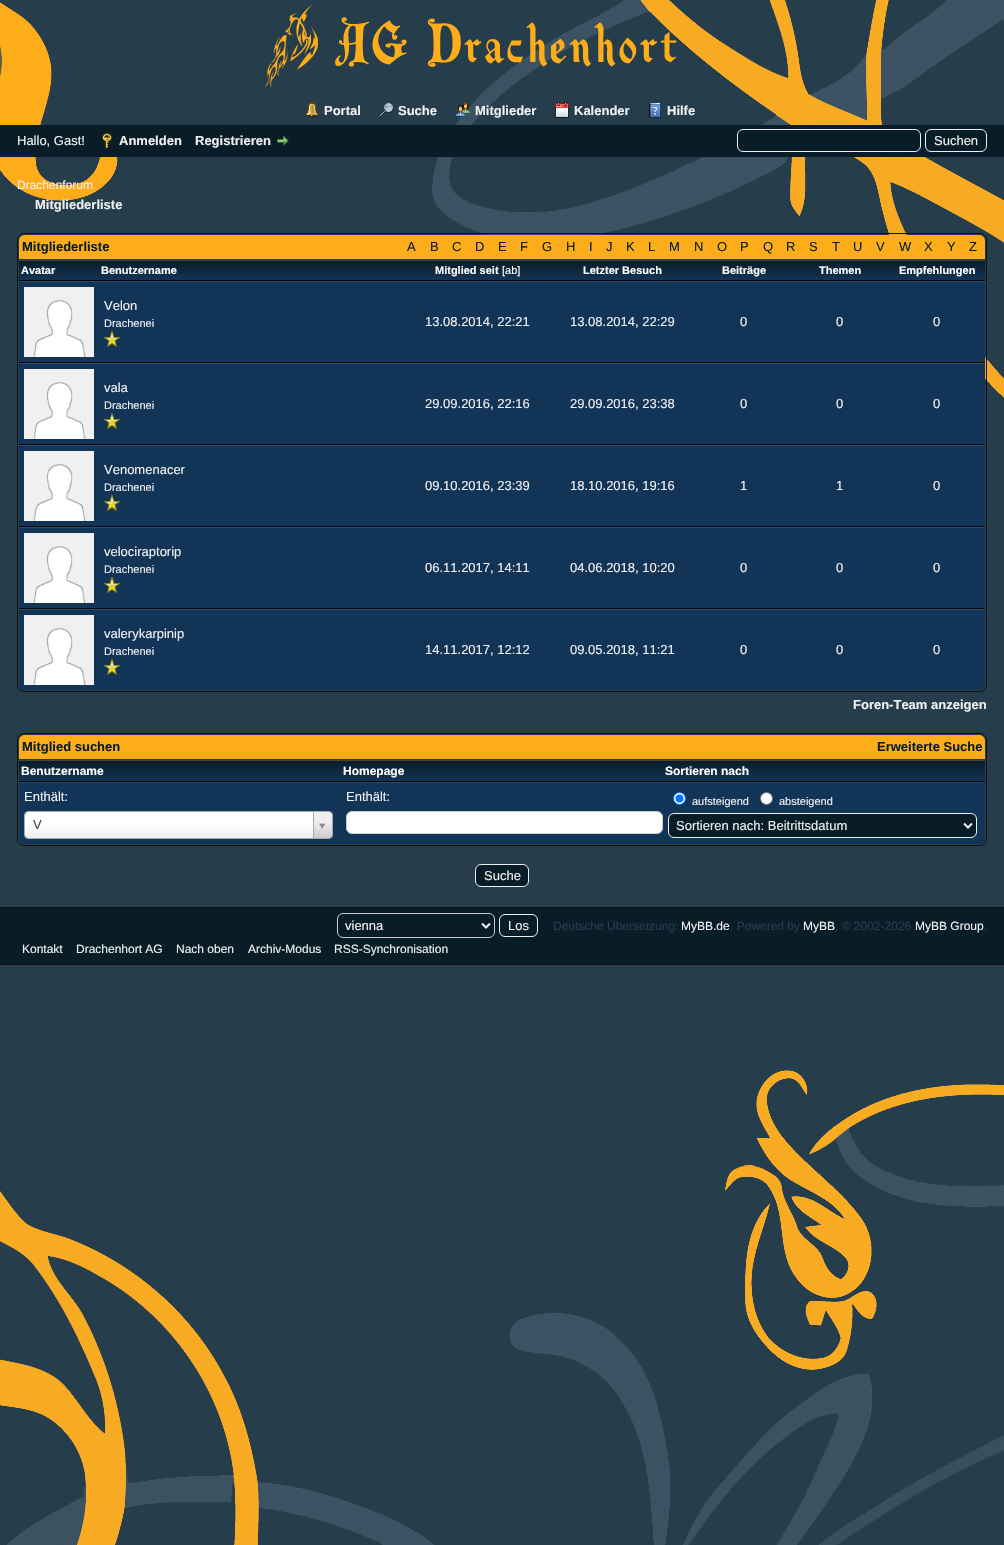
void draw(SkCanvas* canvas) {
  SkPaint paint;
  paint.setAntiAlias(true);
  auto face = [&](const char* family, int weight, float size, bool italic = false) {
    SkFontStyle style(weight, SkFontStyle::kNormal_Width,
      italic ? SkFontStyle::kItalic_Slant : SkFontStyle::kUpright_Slant);
    SkFont result(fontMgr->matchFamilyStyle(family, style), size);
    result.setSubpixel(true);
    return result;
  };
  auto paste = [&](const char* path, float x, float y, float w, float h) {
    auto image = SkImages::DeferredFromEncodedData(SkData::MakeFromFileName(path));
    canvas->drawImageRect(image, SkRect::MakeXYWH(x, y, w, h), SkSamplingOptions());
  };
  auto shape = [&](const char* data, bool evenOdd = false) {
    SkPath result = *SkParsePath::FromSVGString(data);
    if (evenOdd) result.setFillType(SkPathFillType::kEvenOdd);
    return result;
  };
  canvas->clear(0xff263d4b);
  paste("img/1.png", 0, 2, 118, 199);
  paste("img/2.png", 432, 0, 572, 398);
  paste("img/3.png", 264, 5, 413, 82);
  paste("img/4.png", 305, 102, 14, 16);
  paste("img/5.png", 379, 102, 15, 15);
  paste("img/6.png", 455, 102, 16, 15);
  paste("img/7.png", 555, 102, 14, 16);
  paste("img/8.png", 649, 102, 12, 16);
  paint.setColor(0xff091d28);
  canvas->drawRect(SkRect::MakeXYWH(0, 125, 1004, 32), paint);
  paste("img/9.png", 102, 133, 10, 15);
  paste("img/10.png", 277, 136, 12, 10);
  paint.setStroke(true);
  paint.setStrokeWidth(1);
  paint.setColor(0xffefefef);
  canvas->drawRoundRect(SkRect::MakeXYWH(737.5f, 129.5f, 183, 22), 5.5f, 5.5f, paint);
  canvas->drawRoundRect(SkRect::MakeXYWH(925.5f, 129.5f, 61, 22), 5.5f, 5.5f, paint);
  paint.setColor(0xff111111);
  canvas->drawRoundRect(SkRect::MakeXYWH(17.5f, 233.5f, 969, 458), 6.5f, 6.5f, paint);
  paint.setStroke(false);
  paint.setColor(0xfffdad1a);
  canvas->drawPath(shape("M25 235H979C982.5 235 985 237.5 985 241V260H19V241C19 237.5 21.5 235 25 235Z"), paint);
  paint.setColor(0xff263c30);
  canvas->drawRect(SkRect::MakeXYWH(19, 259, 966, 1), paint);
  {
    const SkColor colors[] = {0xff091d28, 0xff123456};
    const float stops[] = {0, 1};
    const SkPoint ends[] = {{59, 261}, {59, 280}};
    paint.setShader(SkGradientShader::MakeLinear(ends, colors, stops, 2, SkTileMode::kClamp));
    paint.setAlpha(255);
  }
  canvas->drawRect(SkRect::MakeXYWH(19, 261, 80, 19), paint);
  paint.setShader(nullptr);
  paint.setColor(0xff444444);
  canvas->drawRect(SkRect::MakeXYWH(19, 260, 966, 1), paint);
  paint.setColor(0xff000000);
  canvas->drawRect(SkRect::MakeXYWH(19, 280, 966, 1), paint);
  {
    const SkColor colors[] = {0xff091d28, 0xff123456};
    const float stops[] = {0, 1};
    const SkPoint ends[] = {{252, 261}, {252, 280}};
    paint.setShader(SkGradientShader::MakeLinear(ends, colors, stops, 2, SkTileMode::kClamp));
    paint.setAlpha(255);
  }
  canvas->drawRect(SkRect::MakeXYWH(99, 261, 306, 19), paint);
  {
    const SkColor colors[] = {0xff091d28, 0xff123456};
    const float stops[] = {0, 1};
    const SkPoint ends[] = {{478, 261}, {478, 280}};
    paint.setShader(SkGradientShader::MakeLinear(ends, colors, stops, 2, SkTileMode::kClamp));
    paint.setAlpha(255);
  }
  canvas->drawRect(SkRect::MakeXYWH(405, 261, 145, 19), paint);
  {
    const SkColor colors[] = {0xff091d28, 0xff123456};
    const float stops[] = {0, 1};
    const SkPoint ends[] = {{623, 261}, {623, 280}};
    paint.setShader(SkGradientShader::MakeLinear(ends, colors, stops, 2, SkTileMode::kClamp));
    paint.setAlpha(255);
  }
  canvas->drawRect(SkRect::MakeXYWH(550, 261, 145, 19), paint);
  {
    const SkColor colors[] = {0xff091d28, 0xff123456};
    const float stops[] = {0, 1};
    const SkPoint ends[] = {{744, 261}, {744, 280}};
    paint.setShader(SkGradientShader::MakeLinear(ends, colors, stops, 2, SkTileMode::kClamp));
    paint.setAlpha(255);
  }
  canvas->drawRect(SkRect::MakeXYWH(695, 261, 97, 19), paint);
  {
    const SkColor colors[] = {0xff091d28, 0xff123456};
    const float stops[] = {0, 1};
    const SkPoint ends[] = {{840, 261}, {840, 280}};
    paint.setShader(SkGradientShader::MakeLinear(ends, colors, stops, 2, SkTileMode::kClamp));
    paint.setAlpha(255);
  }
  canvas->drawRect(SkRect::MakeXYWH(792, 261, 96, 19), paint);
  {
    const SkColor colors[] = {0xff091d28, 0xff123456};
    const float stops[] = {0, 1};
    const SkPoint ends[] = {{937, 261}, {937, 280}};
    paint.setShader(SkGradientShader::MakeLinear(ends, colors, stops, 2, SkTileMode::kClamp));
    paint.setAlpha(255);
  }
  canvas->drawRect(SkRect::MakeXYWH(888, 261, 97, 19), paint);
  paint.setShader(nullptr);
  {
    const struct { float x, y, w, h; SkColor color; } items[] = {
      {19, 282, 966, 80, 0xff123456},
      {19, 281, 966, 1, 0xff2c4a69},
      {19, 362, 966, 1, 0xff0a0a0a},
    };
    for (auto [x, y, w, h, color] : items) {
      paint.setColor(color);
      canvas->drawRect(SkRect::MakeXYWH(x, y, w, h), paint);
    }
  }
  paste("img/11.png", 24, 287, 70, 70);
  paste("img/12.png", 104, 331, 16, 16);
  {
    const struct { float x, y, w, h; SkColor color; } items[] = {
      {19, 364, 966, 80, 0xff123456},
      {19, 363, 966, 1, 0xff2c4a69},
      {19, 444, 966, 1, 0xff0a0a0a},
    };
    for (auto [x, y, w, h, color] : items) {
      paint.setColor(color);
      canvas->drawRect(SkRect::MakeXYWH(x, y, w, h), paint);
    }
  }
  paste("img/13.png", 24, 369, 70, 70);
  paste("img/12.png", 104, 413, 16, 16);
  {
    const struct { float x, y, w, h; SkColor color; } items[] = {
      {19, 446, 966, 80, 0xff123456},
      {19, 445, 966, 1, 0xff2c4a69},
      {19, 526, 966, 1, 0xff0a0a0a},
    };
    for (auto [x, y, w, h, color] : items) {
      paint.setColor(color);
      canvas->drawRect(SkRect::MakeXYWH(x, y, w, h), paint);
    }
  }
  paste("img/11.png", 24, 451, 70, 70);
  paste("img/12.png", 104, 495, 16, 16);
  {
    const struct { float x, y, w, h; SkColor color; } items[] = {
      {19, 528, 966, 80, 0xff123456},
      {19, 527, 966, 1, 0xff2c4a69},
      {19, 608, 966, 1, 0xff0a0a0a},
    };
    for (auto [x, y, w, h, color] : items) {
      paint.setColor(color);
      canvas->drawRect(SkRect::MakeXYWH(x, y, w, h), paint);
    }
  }
  paste("img/11.png", 24, 533, 70, 70);
  paste("img/12.png", 104, 577, 16, 16);
  paint.setColor(0xff123456);
  canvas->drawPath(shape("M19 609H99V690H25C21.5 690 19 687.5 19 684Z"), paint);
  paint.setColor(0xff2c4a69);
  canvas->drawRect(SkRect::MakeXYWH(19, 609, 869, 1), paint);
  paste("img/11.png", 24, 615, 70, 70);
  paint.setColor(0xff123456);
  canvas->drawRect(SkRect::MakeXYWH(99, 610, 789, 80), paint);
  paste("img/12.png", 104, 659, 16, 16);
  canvas->drawPath(shape("M888 609H985V684C985 687.5 982.5 690 979 690H888Z"), paint);
  paint.setColor(0xff2c4a69);
  canvas->drawRect(SkRect::MakeXYWH(888, 609, 97, 1), paint);
  paint.setStroke(true);
  paint.setColor(0xff111111);
  canvas->drawRoundRect(SkRect::MakeXYWH(17.5f, 733.5f, 969, 112), 6.5f, 6.5f, paint);
  paint.setStroke(false);
  paint.setColor(0xfffdad1a);
  canvas->drawPath(shape("M25 735H979C982.5 735 985 737.5 985 741V760H19V741C19 737.5 21.5 735 25 735Z"), paint);
  paint.setColor(0xff263c30);
  canvas->drawRect(SkRect::MakeXYWH(19, 759, 966, 1), paint);
  {
    const SkColor colors[] = {0xff091d28, 0xff123456};
    const float stops[] = {0, 1};
    const SkPoint ends[] = {{180, 761}, {180, 781}};
    paint.setShader(SkGradientShader::MakeLinear(ends, colors, stops, 2, SkTileMode::kClamp));
    paint.setAlpha(255);
  }
  canvas->drawRect(SkRect::MakeXYWH(19, 761, 322, 20), paint);
  paint.setShader(nullptr);
  paint.setColor(0xff444444);
  canvas->drawRect(SkRect::MakeXYWH(19, 760, 966, 1), paint);
  paint.setColor(0xff000000);
  canvas->drawRect(SkRect::MakeXYWH(19, 781, 966, 1), paint);
  {
    const SkColor colors[] = {0xff091d28, 0xff123456};
    const float stops[] = {0, 1};
    const SkPoint ends[] = {{502, 761}, {502, 781}};
    paint.setShader(SkGradientShader::MakeLinear(ends, colors, stops, 2, SkTileMode::kClamp));
    paint.setAlpha(255);
  }
  canvas->drawRect(SkRect::MakeXYWH(341, 761, 322, 20), paint);
  {
    const SkColor colors[] = {0xff091d28, 0xff123456};
    const float stops[] = {0, 1};
    const SkPoint ends[] = {{824, 761}, {824, 781}};
    paint.setShader(SkGradientShader::MakeLinear(ends, colors, stops, 2, SkTileMode::kClamp));
    paint.setAlpha(255);
  }
  canvas->drawRect(SkRect::MakeXYWH(663, 761, 322, 20), paint);
  paint.setShader(nullptr);
  paint.setColor(0xff123456);
  canvas->drawPath(shape("M19 782H341V844H25C21.5 844 19 841.5 19 838Z"), paint);
  paint.setColor(0xff2c4a69);
  canvas->drawRect(SkRect::MakeXYWH(19, 782, 644, 1), paint);
  {
    const SkColor colors[] = {0xffeeeeee, 0xffffffff};
    const float stops[] = {0, 0.5f};
    const SkPoint ends[] = {{179, 838}, {179, 812}};
    paint.setShader(SkGradientShader::MakeLinear(ends, colors, stops, 2, SkTileMode::kClamp));
    paint.setAlpha(255);
  }
  canvas->drawRoundRect(SkRect::MakeXYWH(25, 812, 307, 26), 3, 3, paint);
  paint.setStroke(true);
  paint.setShader(nullptr);
  paint.setColor(0xffaaaaaa);
  canvas->drawRoundRect(SkRect::MakeXYWH(24.5f, 811.5f, 308, 27), 3.5f, 3.5f, paint);
  canvas->save();
  canvas->clipPath(shape("M28 812H329C330.5 812 332 813.5 332 815V835C332 836.5 330.5 838 329 838H28C26.5 838 25 836.5 25 835V815C25 813.5 26.5 812 28 812Z"), true);
  paint.setStroke(false);
  {
    const SkColor colors[] = {0xffcccccc, 0xffeeeeee};
    const float stops[] = {0, 0.6f};
    const SkPoint ends[] = {{323, 838}, {323, 812}};
    paint.setShader(SkGradientShader::MakeLinear(ends, colors, stops, 2, SkTileMode::kClamp));
    paint.setAlpha(255);
  }
  canvas->drawPath(shape("M313 812H328C330 812 332 814 332 816V834C332 836 330 838 328 838H313Z"), paint);
  canvas->restore();
  paint.setShader(nullptr);
  paint.setColor(0xffaaaaaa);
  canvas->drawRect(SkRect::MakeXYWH(313, 812, 1, 26), paint);
  paste("img/14.png", 319, 823, 7, 6);
  paint.setColor(0xff123456);
  canvas->drawRect(SkRect::MakeXYWH(341, 783, 322, 61), paint);
  paint.setColor(0xffffffff);
  canvas->drawRoundRect(SkRect::MakeXYWH(346.5f, 811.5f, 316, 22), 5.5f, 5.5f, paint);
  paint.setStroke(true);
  paint.setColor(0xffcccccc);
  canvas->drawRoundRect(SkRect::MakeXYWH(346.5f, 811.5f, 316, 22), 5.5f, 5.5f, paint);
  paint.setStroke(false);
  paint.setColor(0xff123456);
  canvas->drawPath(shape("M663 782H985V838C985 841.5 982.5 844 979 844H663Z"), paint);
  paint.setColor(0xff2c4a69);
  canvas->drawRect(SkRect::MakeXYWH(663, 782, 322, 1), paint);
  paint.setColor(0xffffffff);
  canvas->drawCircle(679.5f, 798.5f, 6, paint);
  paint.setStroke(true);
  paint.setColor(0xff0075ff);
  canvas->drawCircle(679.5f, 798.5f, 6, paint);
  paint.setStroke(false);
  canvas->drawCircle(679.5f, 798.5f, 4, paint);
  paint.setColor(0xffffffff);
  canvas->drawCircle(766.5f, 798.5f, 6, paint);
  paint.setStroke(true);
  paint.setColor(0xff767676);
  canvas->drawCircle(766.5f, 798.5f, 6, paint);
  paint.setStroke(false);
  paint.setColor(0xff091d28);
  canvas->drawRoundRect(SkRect::MakeXYWH(668.5f, 813.5f, 308, 24), 5.5f, 5.5f, paint);
  paint.setStroke(true);
  paint.setColor(0xffefefef);
  canvas->drawRoundRect(SkRect::MakeXYWH(668.5f, 813.5f, 308, 24), 5.5f, 5.5f, paint);
  paint.setStrokeWidth(2);
  canvas->drawPath(shape("M964 823.5L968 827.5L972 823.5"), paint);
  paint.setStroke(false);
  paint.setColor(0xff091d28);
  canvas->drawRoundRect(SkRect::MakeXYWH(475.5f, 864.5f, 53, 22), 5.5f, 5.5f, paint);
  paint.setStroke(true);
  paint.setStrokeWidth(1);
  paint.setColor(0xffefefef);
  canvas->drawRoundRect(SkRect::MakeXYWH(475.5f, 864.5f, 53, 22), 5.5f, 5.5f, paint);
  paint.setStroke(false);
  {
    const struct { float x, y, w, h; SkColor color; } items[] = {
      {0, 908, 1004, 56, 0xff091d28},
      {0, 907, 1004, 1, 0xff111111},
      {0, 964, 1004, 1, 0xff111111},
    };
    for (auto [x, y, w, h, color] : items) {
      paint.setColor(color);
      canvas->drawRect(SkRect::MakeXYWH(x, y, w, h), paint);
    }
  }
  paint.setStroke(true);
  paint.setColor(0xffcccccc);
  canvas->drawRoundRect(SkRect::MakeXYWH(337.5f, 913.5f, 157, 24), 5.5f, 5.5f, paint);
  paint.setStrokeWidth(2);
  paint.setColor(0xffefefef);
  canvas->drawPath(shape("M482 923.5L486 927.5L490 923.5"), paint);
  paint.setStrokeWidth(1);
  canvas->drawRoundRect(SkRect::MakeXYWH(499.5f, 914.5f, 38, 22), 5.5f, 5.5f, paint);
  paste("img/15.png", 0, 1191, 434, 354);
  paste("img/16.png", 509, 1070, 495, 475);
  auto f0 = face("Liberation Sans", 700, 13);
  paint.setStroke(false);
  {
    const struct { const char* s; float x, y; } items[] = {
      {"Portal", 324, 115},
      {"Suche", 398, 115},
      {"Mitglieder", 475, 115},
      {"Kalender", 574, 115},
      {"Hilfe", 667, 115},
    };
    for (auto [s, x, y] : items) {
      canvas->drawString(s, x, y, f0, paint);
    }
  }
  auto f1 = face("Liberation Sans", 400, 13);
  canvas->drawString("Hallo, Gast!", 17, 145, f1, paint);
  canvas->drawString("Anmelden", 119, 145, f0, paint);
  canvas->drawString("Registrieren", 195, 145, f0, paint);
  canvas->drawString("Suchen", 934, 145, f1, paint);
  auto f2 = face("Liberation Sans", 400, 12);
  canvas->drawString("Drachenforum", 17, 189, f2, paint);
  canvas->drawString("Mitgliederliste", 35, 209, f0, paint);
  paint.setColor(0xff091d28);
  canvas->drawString("Mitgliederliste", 22, 251, f0, paint);
  {
    const struct { const char* s; float x, y; } items[] = {
      {"A", 407, 251},
      {"B", 430, 251},
      {"C", 452, 251},
      {"D", 475, 251},
      {"E", 498, 251},
      {"F", 520, 251},
      {"G", 542, 251},
      {"H", 566, 251},
      {"I", 589, 251},
      {"J", 606, 251},
      {"K", 626, 251},
      {"L", 648, 251},
      {"M", 669, 251},
      {"N", 694, 251},
      {"O", 717, 251},
      {"P", 740, 251},
      {"Q", 763, 251},
      {"R", 786, 251},
      {"S", 809, 251},
      {"T", 832, 251},
      {"U", 853, 251},
      {"V", 876, 251},
      {"W", 899, 251},
      {"X", 924, 251},
      {"Y", 947, 251},
      {"Z", 969, 251},
    };
    for (auto [s, x, y] : items) {
      canvas->drawString(s, x, y, f1, paint);
    }
  }
  auto f3 = face("Liberation Sans", 700, 11);
  paint.setColor(0xffffffff);
  {
    const struct { const char* s; float x, y; } items[] = {
      {"Avatar", 21, 274},
      {"Benutzername", 101, 274},
      {"Mitglied seit", 435, 274},
    };
    for (auto [s, x, y] : items) {
      canvas->drawString(s, x, y, f3, paint);
    }
  }
  auto f4 = face("Liberation Sans", 400, 11);
  canvas->drawString("[ab]", 502, 274, f4, paint);
  {
    const struct { const char* s; float x, y; } items[] = {
      {"Letzter Besuch", 583, 274},
      {"Beiträge", 722, 274},
      {"Themen", 819, 274},
      {"Empfehlungen", 899, 274},
    };
    for (auto [s, x, y] : items) {
      canvas->drawString(s, x, y, f3, paint);
    }
  }
  paint.setColor(0xffefefef);
  canvas->drawString("Velon", 104, 310, f1, paint);
  canvas->drawString("Drachenei", 104, 327, f4, paint);
  {
    const struct { const char* s; float x, y; } items[] = {
      {"13.08.2014, 22:21", 425, 326},
      {"13.08.2014, 22:29", 570, 326},
      {"0", 740, 326},
      {"0", 836, 326},
      {"0", 933, 326},
      {"vala", 104, 392},
    };
    for (auto [s, x, y] : items) {
      canvas->drawString(s, x, y, f1, paint);
    }
  }
  canvas->drawString("Drachenei", 104, 409, f4, paint);
  {
    const struct { const char* s; float x, y; } items[] = {
      {"29.09.2016, 22:16", 425, 408},
      {"29.09.2016, 23:38", 570, 408},
      {"0", 740, 408},
      {"0", 836, 408},
      {"0", 933, 408},
      {"Venomenacer", 104, 474},
    };
    for (auto [s, x, y] : items) {
      canvas->drawString(s, x, y, f1, paint);
    }
  }
  canvas->drawString("Drachenei", 104, 491, f4, paint);
  {
    const struct { const char* s; float x, y; } items[] = {
      {"09.10.2016, 23:39", 425, 490},
      {"18.10.2016, 19:16", 570, 490},
      {"1", 740, 490},
      {"1", 836, 490},
      {"0", 933, 490},
      {"velociraptorip", 104, 556},
    };
    for (auto [s, x, y] : items) {
      canvas->drawString(s, x, y, f1, paint);
    }
  }
  canvas->drawString("Drachenei", 104, 573, f4, paint);
  {
    const struct { const char* s; float x, y; } items[] = {
      {"06.11.2017, 14:11", 425, 572},
      {"04.06.2018, 10:20", 570, 572},
      {"0", 740, 572},
      {"0", 836, 572},
      {"0", 933, 572},
      {"valerykarpinip", 104, 638},
    };
    for (auto [s, x, y] : items) {
      canvas->drawString(s, x, y, f1, paint);
    }
  }
  canvas->drawString("Drachenei", 104, 655, f4, paint);
  {
    const struct { const char* s; float x, y; } items[] = {
      {"14.11.2017, 12:12", 425, 654},
      {"09.05.2018, 11:21", 570, 654},
      {"0", 740, 654},
      {"0", 836, 654},
      {"0", 933, 654},
    };
    for (auto [s, x, y] : items) {
      canvas->drawString(s, x, y, f1, paint);
    }
  }
  canvas->drawString("Foren-Team anzeigen", 853, 709, f0, paint);
  paint.setColor(0xff091d28);
  canvas->drawString("Mitglied suchen", 22, 751, f0, paint);
  canvas->drawString("Erweiterte Suche", 877, 751, f0, paint);
  auto f5 = face("Liberation Sans", 700, 12);
  paint.setColor(0xffffffff);
  {
    const struct { const char* s; float x, y; } items[] = {
      {"Benutzername", 21, 775},
      {"Homepage", 343, 775},
      {"Sortieren nach", 665, 775},
    };
    for (auto [s, x, y] : items) {
      canvas->drawString(s, x, y, f5, paint);
    }
  }
  paint.setColor(0xffefefef);
  canvas->drawString("Enthält:", 24, 801, f1, paint);
  paint.setColor(0xff444444);
  canvas->drawString("V", 33, 829, f1, paint);
  paint.setColor(0xffefefef);
  canvas->drawString("Enthält:", 346, 801, f1, paint);
  canvas->drawString("aufsteigend", 692, 805, f4, paint);
  canvas->drawString("absteigend", 779, 805, f4, paint);
  {
    const struct { const char* s; float x, y; } items[] = {
      {"Sortieren nach: Beitrittsdatum", 676, 830},
      {"Suche", 484, 880},
      {"vienna", 345, 930},
      {"Los", 508, 930},
    };
    for (auto [s, x, y] : items) {
      canvas->drawString(s, x, y, f1, paint);
    }
  }
  paint.setColor(0xff263d4b);
  canvas->drawString("Deutsche Übersetzung:", 553, 930, f2, paint);
  paint.setColor(0xffefefef);
  canvas->drawString("MyBB.de", 681, 930, f2, paint);
  paint.setColor(0xff263d4b);
  canvas->drawString(", Powered by", 730, 930, f2, paint);
  paint.setColor(0xffefefef);
  canvas->drawString("MyBB", 803, 930, f2, paint);
  paint.setColor(0xff263d4b);
  canvas->drawString(", © 2002-2026", 835, 930, f2, paint);
  paint.setColor(0xffefefef);
  canvas->drawString("MyBB Group", 915, 930, f2, paint);
  paint.setColor(0xff263d4b);
  canvas->drawString(".", 984, 930, f2, paint);
  paint.setColor(0xffefefef);
  {
    const struct { const char* s; float x, y; } items[] = {
      {"Kontakt", 22, 953},
      {"Drachenhort AG", 76, 953},
      {"Nach oben", 176, 953},
      {"Archiv-Modus", 248, 953},
      {"RSS-Synchronisation", 334, 953},
    };
    for (auto [s, x, y] : items) {
      canvas->drawString(s, x, y, f2, paint);
    }
  }
}
